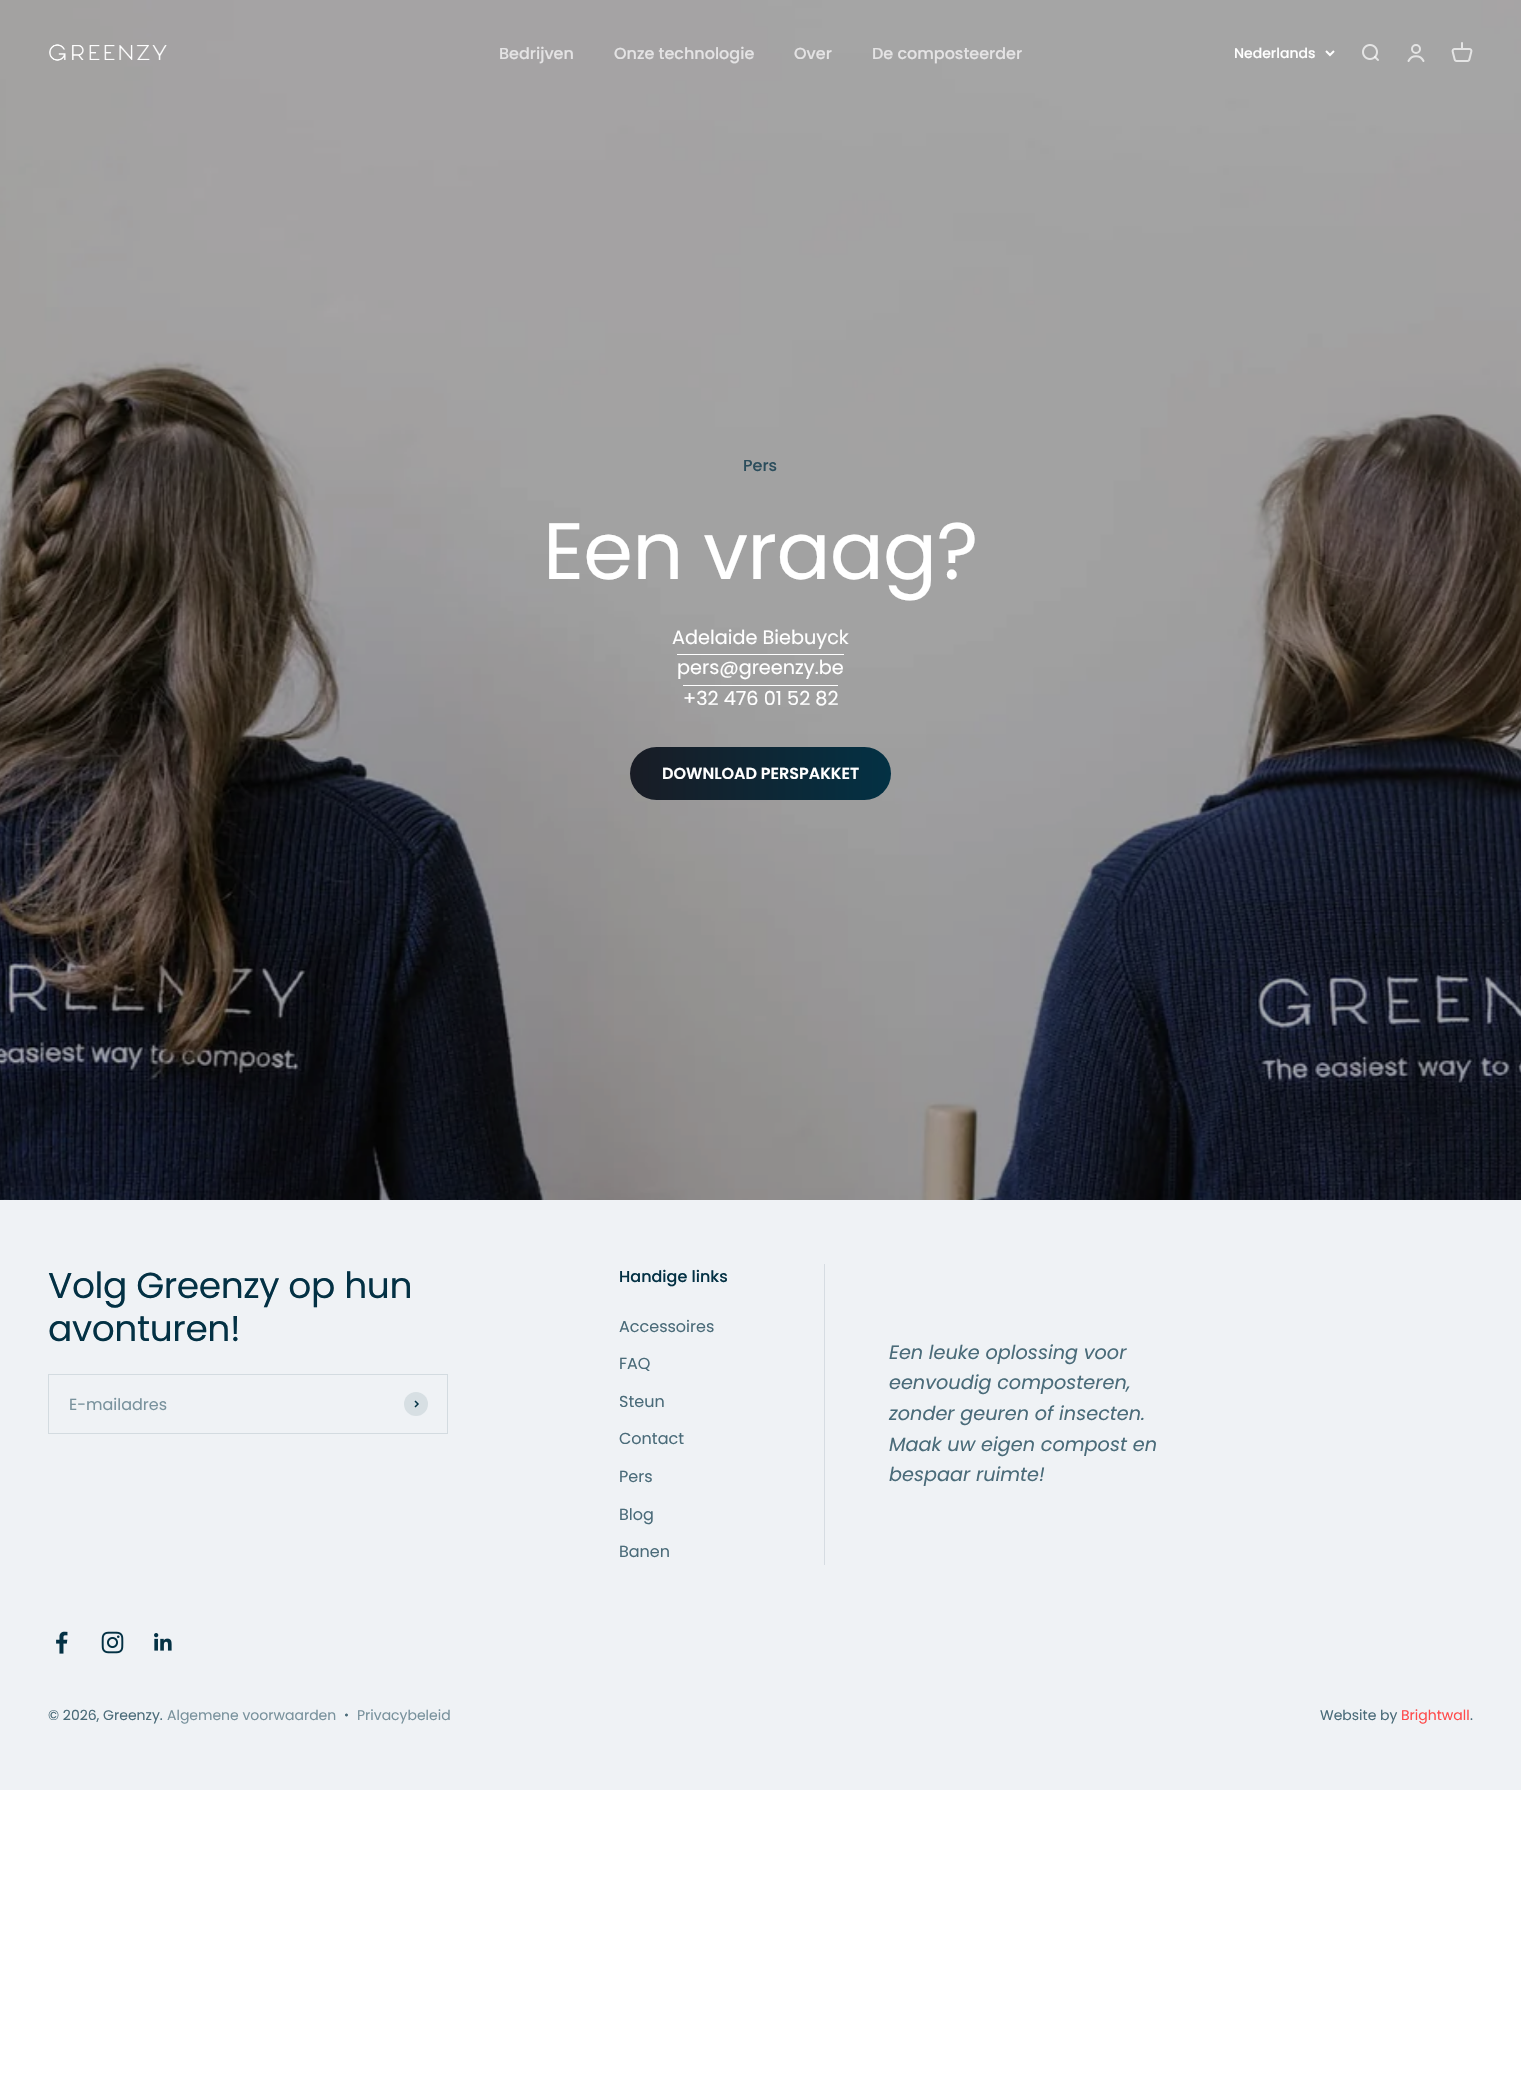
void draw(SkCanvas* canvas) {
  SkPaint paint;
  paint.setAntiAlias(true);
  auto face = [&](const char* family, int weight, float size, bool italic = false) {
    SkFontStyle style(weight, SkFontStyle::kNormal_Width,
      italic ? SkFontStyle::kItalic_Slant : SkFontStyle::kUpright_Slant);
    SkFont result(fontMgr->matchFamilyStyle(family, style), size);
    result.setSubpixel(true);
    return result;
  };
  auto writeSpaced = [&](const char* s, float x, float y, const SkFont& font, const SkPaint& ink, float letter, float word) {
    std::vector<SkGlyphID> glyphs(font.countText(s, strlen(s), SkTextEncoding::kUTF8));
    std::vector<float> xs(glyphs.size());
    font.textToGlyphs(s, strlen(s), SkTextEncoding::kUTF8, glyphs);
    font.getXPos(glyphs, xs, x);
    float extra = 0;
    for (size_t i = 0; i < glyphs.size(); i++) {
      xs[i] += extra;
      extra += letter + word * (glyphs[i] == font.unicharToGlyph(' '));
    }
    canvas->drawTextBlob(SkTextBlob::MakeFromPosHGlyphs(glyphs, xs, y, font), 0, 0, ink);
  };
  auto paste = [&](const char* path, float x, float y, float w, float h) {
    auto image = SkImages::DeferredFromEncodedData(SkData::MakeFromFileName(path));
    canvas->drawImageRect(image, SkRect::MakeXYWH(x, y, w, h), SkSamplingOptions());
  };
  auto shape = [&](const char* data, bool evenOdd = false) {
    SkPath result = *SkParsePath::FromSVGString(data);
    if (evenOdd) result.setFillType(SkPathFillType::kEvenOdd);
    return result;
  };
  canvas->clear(0xffffffff);
  paste("img/4.png", 0, 0, 1521, 1200);
  paste("img/1.png", 49, 44, 118, 17);
  paint.setStroke(true);
  paint.setStrokeWidth(2);
  paint.setColor(0xffffffff);
  canvas->drawPath(shape("M1326 51L1330 55L1334 51"), paint);
  paste("img/2.png", 1362, 44, 17, 17);
  paint.setColor(0xffe4e4e4);
  canvas->drawCircle(1416, 49, 4, paint);
  paint.setStrokeCap(SkPaint::kRound_Cap);
  canvas->drawPath(shape("M1408.5 61C1411.5 54.5 1420.5 54.5 1423.5 61"), paint);
  paste("img/3.png", 1451, 42, 22, 20);
  paint.setStroke(false);
  paint.setColor(0xffffffff);
  canvas->drawRect(SkRect::MakeXYWH(677, 654, 167, 1), paint);
  canvas->drawRect(SkRect::MakeXYWH(683, 685, 155, 1), paint);
  {
    const SkColor colors[] = {0xff191c25, 0xff033144};
    const float stops[] = {0, 1};
    const SkPoint ends[] = {{630, 774}, {891, 774}};
    paint.setShader(SkGradientShader::MakeLinear(ends, colors, stops, 2, SkTileMode::kClamp));
    paint.setAlpha(255);
  }
  canvas->drawRoundRect(SkRect::MakeXYWH(630, 747, 261, 53), 26.5f, 26.5f, paint);
  paint.setShader(nullptr);
  paint.setColor(0xffeff2f5);
  canvas->drawRect(SkRect::MakeXYWH(0, 1200, 1521, 590), paint);
  paint.setStroke(true);
  paint.setStrokeWidth(1);
  paint.setStrokeCap(SkPaint::kButt_Cap);
  paint.setColor(0xffd3dbe0);
  canvas->drawRect(SkRect::MakeXYWH(48.5f, 1374.5f, 399, 59), paint);
  paint.setStroke(false);
  paint.setColor(0xffd7dfe3);
  canvas->drawCircle(416, 1404, 12, paint);
  paint.setStroke(true);
  paint.setStrokeWidth(1.5f);
  paint.setColor(0xff033144);
  canvas->drawPath(shape("M415 1407L418 1404L415 1401"), paint);
  paint.setStroke(false);
  paint.setColor(0xffd6dce2);
  canvas->drawRect(SkRect::MakeXYWH(824, 1264, 1, 301), paint);
  paste("img/5.png", 56, 1631, 12, 23);
  paste("img/6.png", 101, 1631, 23, 23);
  paste("img/7.png", 154, 1633, 18, 18);
  auto f0 = face("Poppins", 500, 16);
  paint.setColor(0xffe4e3e4);
  {
    const struct { const char* s; float x, y; } items[] = {
      {"Bedrijven", 499, 59},
      {"Onze technologie", 614, 59},
      {"Over", 794, 59},
      {"De composteerder", 872, 59},
    };
    for (auto [s, x, y] : items) {
      canvas->drawString(s, x, y, f0, paint);
    }
  }
  auto f1 = face("Poppins", 500, 14);
  paint.setColor(0xffffffff);
  canvas->drawString("Nederlands", 1234, 58, f1, paint);
  paint.setColor(0xff2b4d5c);
  canvas->drawString("Pers", 743, 471, f0, paint);
  auto f2 = face("Poppins", 400, 80);
  paint.setColor(0xffffffff);
  writeSpaced("Een vraag?", 543, 579, f2, paint, -0.75f, 0);
  auto f3 = face("Poppins", 400, 19.25f);
  {
    const struct { const char* s; float x, y; } items[] = {
      {"Adelaide Biebuyck", 672, 644},
      {"pers@greenzy.be", 677, 674},
      {"+32 476 01 52 82", 683, 705},
    };
    for (auto [s, x, y] : items) {
      canvas->drawString(s, x, y, f3, paint);
    }
  }
  auto f4 = face("Poppins", 600, 16);
  canvas->drawString("DOWNLOAD PERSPAKKET", 662, 779, f4, paint);
  auto f5 = face("Poppins", 400, 36);
  paint.setColor(0xff033144);
  writeSpaced("Volg Greenzy op hun", 48, 1298, f5, paint, -0.4f, 0);
  writeSpaced("avonturen!", 48, 1341, f5, paint, -0.4f, 0);
  auto f6 = face("Poppins", 400, 16);
  paint.setColor(0xff79929d);
  canvas->drawString("E-mailadres", 69, 1410, f6, paint);
  paint.setColor(0xff033144);
  canvas->drawString("Handige links", 619, 1282, f0, paint);
  paint.setColor(0xff4a6b79);
  {
    const struct { const char* s; float x, y; } items[] = {
      {"Accessoires", 619, 1332},
      {"FAQ", 619, 1369},
      {"Steun", 619, 1407},
      {"Contact", 619, 1444},
      {"Pers", 619, 1482},
      {"Blog", 619, 1520},
      {"Banen", 619, 1557},
    };
    for (auto [s, x, y] : items) {
      canvas->drawString(s, x, y, f6, paint);
    }
  }
  auto f7 = face("Poppins", 400, 19.25f, true);
  {
    const struct { const char* s; float x, y; } items[] = {
      {"Een leuke oplossing voor", 889, 1359},
      {"eenvoudig composteren,", 889, 1389},
      {"zonder geuren of insecten.", 889, 1420},
      {"Maak uw eigen compost en", 889, 1451},
      {"bespaar ruimte!", 889, 1481},
    };
    for (auto [s, x, y] : items) {
      canvas->drawString(s, x, y, f7, paint);
    }
  }
  auto f8 = face("Poppins", 400, 14);
  canvas->drawString("© 2026, Greenzy.", 48, 1720, f8, paint);
  paint.setColor(0xff79929d);
  canvas->drawString("Algemene voorwaarden", 167, 1720, f8, paint);
  auto f9 = face("Poppins", 400, 12);
  paint.setColor(0xff4a6b79);
  canvas->drawString("•", 344, 1719, f9, paint);
  paint.setColor(0xff79929d);
  canvas->drawString("Privacybeleid", 357, 1720, f8, paint);
  paint.setColor(0xff4a6b79);
  canvas->drawString("Website by", 1320, 1720, f8, paint);
  paint.setColor(0xffff4b4b);
  canvas->drawString("Brightwall", 1401, 1720, f8, paint);
  paint.setColor(0xff4a6b79);
  canvas->drawString(".", 1470, 1720, f8, paint);
}
